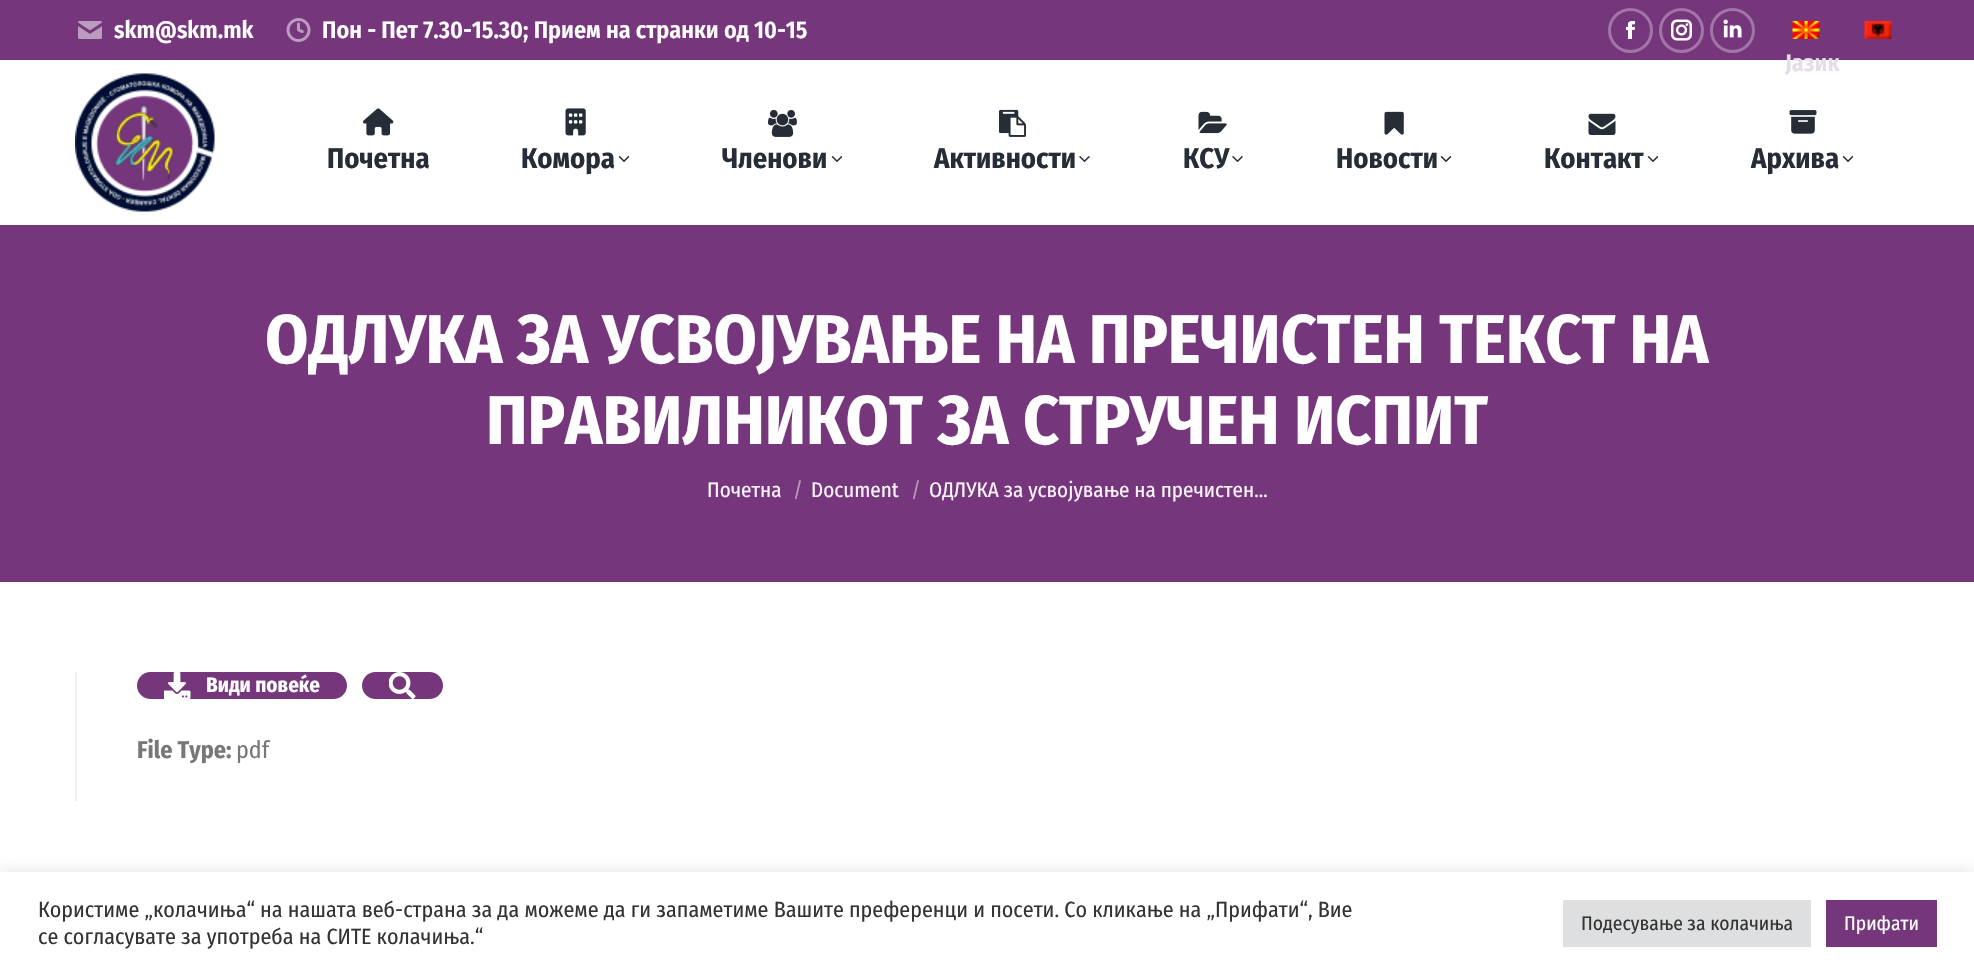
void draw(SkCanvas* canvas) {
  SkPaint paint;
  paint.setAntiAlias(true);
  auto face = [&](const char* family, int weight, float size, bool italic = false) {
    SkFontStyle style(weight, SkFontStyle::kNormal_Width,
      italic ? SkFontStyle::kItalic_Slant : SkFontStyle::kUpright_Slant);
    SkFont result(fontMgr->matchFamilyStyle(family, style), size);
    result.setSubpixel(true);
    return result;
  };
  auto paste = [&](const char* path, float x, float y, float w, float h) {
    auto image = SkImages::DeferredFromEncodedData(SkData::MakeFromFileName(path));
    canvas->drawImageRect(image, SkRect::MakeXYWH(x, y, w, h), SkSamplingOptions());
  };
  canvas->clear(0xffffffff);
  paint.setColor(0xff75367c);
  canvas->drawRect(SkRect::MakeXYWH(0, 0, 1974, 60), paint);
  paste("img/1.png", 78, 21, 24, 18);
  paste("img/2.png", 286, 18, 25, 24);
  paint.setStroke(true);
  paint.setStrokeWidth(3);
  paint.setColor(0xffa176a6);
  canvas->drawCircle(1630.5f, 30.5f, 21, paint);
  paste("img/3.png", 1625, 21, 11, 18);
  canvas->drawCircle(1681.5f, 30.5f, 21, paint);
  paste("img/4.png", 1671, 19, 21, 22);
  canvas->drawCircle(1732.5f, 30.5f, 21, paint);
  paste("img/5.png", 1723, 19, 19, 19);
  paste("img/6.png", 1792, 21, 28, 18);
  paste("img/7.png", 1864, 21, 28, 18);
  paste("img/8.png", 75, 73, 140, 139);
  paste("img/9.png", 363, 108, 31, 28);
  paste("img/10.png", 565, 108, 21, 28);
  paste("img/11.png", 618, 156, 12, 6);
  paste("img/12.png", 768, 109, 29, 28);
  paste("img/11.png", 831, 156, 12, 6);
  paste("img/13.png", 999, 109, 27, 28);
  paste("img/14.png", 1079, 156, 11, 6);
  paste("img/15.png", 1198, 111, 29, 23);
  paste("img/14.png", 1232, 156, 11, 6);
  paste("img/16.png", 1384, 111, 20, 24);
  paste("img/11.png", 1440, 156, 12, 6);
  paste("img/17.png", 1588, 113, 28, 22);
  paste("img/11.png", 1647, 156, 12, 6);
  paste("img/18.png", 1789, 110, 28, 24);
  paste("img/11.png", 1842, 156, 12, 6);
  paint.setStroke(false);
  paint.setColor(0xff75367c);
  canvas->drawRect(SkRect::MakeXYWH(0, 225, 1974, 357), paint);
  paint.setColor(0xffeeeeee);
  canvas->drawRect(SkRect::MakeXYWH(75, 672, 2, 129), paint);
  paint.setColor(0xff75367c);
  canvas->drawRoundRect(SkRect::MakeXYWH(137, 672, 210, 27), 13.5f, 13.5f, paint);
  paste("img/19.png", 164, 672, 27, 27);
  canvas->drawRoundRect(SkRect::MakeXYWH(362, 672, 81, 27), 13.5f, 13.5f, paint);
  paste("img/20.png", 389, 672, 27, 27);
  paint.setColor(0x4dacabab);
  paint.setMaskFilter(SkMaskFilter::MakeBlur(kNormal_SkBlurStyle, 7.5f));
  canvas->drawRect(SkRect::MakeXYWH(0, 870, 1974, 104), paint);
  paint.setMaskFilter(nullptr);
  {
    const struct { float x, y, w, h; SkColor color; } items[] = {
      {0, 872, 1974, 103, 0xffffffff},
      {1563, 900, 248, 47, 0xffdedfe0},
      {1826, 900, 111, 47, 0xff75367c},
    };
    for (auto [x, y, w, h, color] : items) {
      paint.setColor(color);
      canvas->drawRect(SkRect::MakeXYWH(x, y, w, h), paint);
    }
  }
  auto f0 = face("Fira Sans Condensed", 600, 24);
  paint.setColor(0xffffffff);
  canvas->drawString("skm@skm.mk", 114, 38, f0, paint);
  canvas->drawString("Пон - Пет 7.30-15.30; Прием на странки од 10-15", 322, 38, f0, paint);
  paint.setColor(0xffe6dbe7);
  canvas->drawString("Јазик", 1785, 71, f0, paint);
  auto f1 = face("Fira Sans Condensed", 700, 28.5f);
  paint.setColor(0xff262d37);
  {
    const struct { const char* s; float x, y; } items[] = {
      {"Почетна", 327, 168},
      {"Комора", 521, 168},
      {"Членови", 722, 168},
      {"Активности", 934, 168},
      {"КСУ", 1183, 168},
      {"Новости", 1336, 168},
      {"Контакт", 1544, 168},
      {"Архива", 1751, 168},
    };
    for (auto [s, x, y] : items) {
      canvas->drawString(s, x, y, f1, paint);
    }
  }
  auto f2 = face("Fira Sans Condensed", 700, 69);
  paint.setColor(0xffffffff);
  canvas->drawString("ОДЛУКА ЗА УСВОЈУВАЊЕ НА ПРЕЧИСТЕН ТЕКСТ НА", 265, 363, f2, paint);
  canvas->drawString("ПРАВИЛНИКОТ ЗА СТРУЧЕН ИСПИТ", 486, 444, f2, paint);
  auto f3 = face("Fira Sans Condensed", 400, 21);
  paint.setColor(0xfffff5ff);
  canvas->drawString("Почетна", 707, 497, f3, paint);
  paint.setColor(0xffba96be);
  canvas->drawString("/", 793, 497, f3, paint);
  paint.setColor(0xfffff5ff);
  canvas->drawString("Document", 811, 497, f3, paint);
  paint.setColor(0xffba96be);
  canvas->drawString("/", 911, 497, f3, paint);
  paint.setColor(0xfffff5ff);
  canvas->drawString("ОДЛУКА за усвојување на пречистен…", 929, 497, f3, paint);
  auto f4 = face("Fira Sans Condensed", 700, 21);
  paint.setColor(0xffffffff);
  canvas->drawString("Види повеќе", 206, 692, f4, paint);
  auto f5 = face("Fira Sans Condensed", 700, 24);
  paint.setColor(0xff777777);
  canvas->drawString("File Type:", 137, 758, f5, paint);
  auto f6 = face("Fira Sans Condensed", 400, 24);
  canvas->drawString("pdf", 236, 758, f6, paint);
  auto f7 = face("Fira Sans Condensed", 400, 22);
  paint.setColor(0xff333333);
  canvas->drawString("Користиме „колачиња“ на нашата веб-страна за да можеме да ги запаметиме Вашите преференци и посети. Со кликање на „Прифати“, Вие", 38, 917, f7, paint);
  canvas->drawString("се согласувате за употреба на СИТЕ колачиња.“", 38, 944, f7, paint);
  auto f8 = face("Fira Sans Condensed", 400, 19.5f);
  canvas->drawString("Подесување за колачиња", 1581, 930, f8, paint);
  paint.setColor(0xffffffff);
  canvas->drawString("Прифати", 1844, 930, f8, paint);
}
